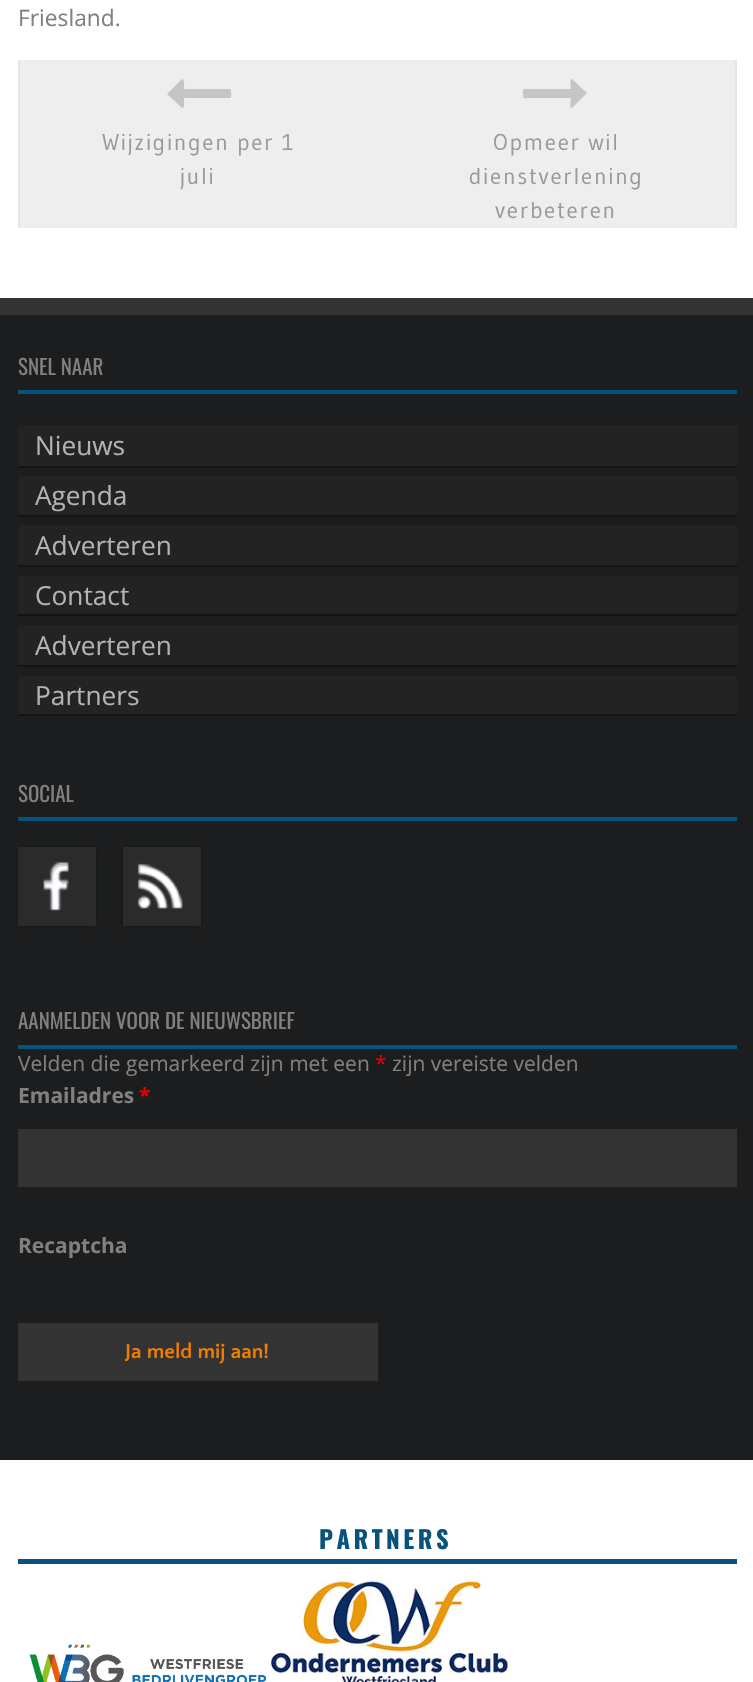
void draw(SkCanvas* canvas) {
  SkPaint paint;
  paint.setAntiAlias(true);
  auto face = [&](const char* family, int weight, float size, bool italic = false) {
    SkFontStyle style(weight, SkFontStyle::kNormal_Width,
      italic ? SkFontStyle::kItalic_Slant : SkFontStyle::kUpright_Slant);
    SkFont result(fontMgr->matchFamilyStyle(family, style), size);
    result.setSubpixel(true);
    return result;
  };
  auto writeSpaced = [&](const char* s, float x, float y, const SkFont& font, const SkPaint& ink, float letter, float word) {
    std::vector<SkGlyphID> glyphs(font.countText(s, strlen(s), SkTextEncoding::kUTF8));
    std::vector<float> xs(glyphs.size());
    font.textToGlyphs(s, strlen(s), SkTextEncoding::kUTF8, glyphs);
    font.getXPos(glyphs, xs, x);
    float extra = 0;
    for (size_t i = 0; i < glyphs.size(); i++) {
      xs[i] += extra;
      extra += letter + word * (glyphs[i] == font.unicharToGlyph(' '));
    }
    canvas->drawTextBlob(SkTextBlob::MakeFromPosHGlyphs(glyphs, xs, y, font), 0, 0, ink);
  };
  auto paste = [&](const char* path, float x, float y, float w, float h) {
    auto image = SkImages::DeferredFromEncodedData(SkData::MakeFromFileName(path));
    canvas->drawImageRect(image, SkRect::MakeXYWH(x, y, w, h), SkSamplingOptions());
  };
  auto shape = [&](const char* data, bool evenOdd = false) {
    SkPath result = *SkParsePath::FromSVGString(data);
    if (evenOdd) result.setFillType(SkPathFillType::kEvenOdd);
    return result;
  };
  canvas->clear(0xffffffff);
  paint.setColor(0xffeeeeee);
  canvas->drawRect(SkRect::MakeXYWH(20, 60, 715, 168), paint);
  paint.setColor(0xffe5e5e5);
  canvas->drawRect(SkRect::MakeXYWH(18, 60, 2, 168), paint);
  paint.setColor(0xffc5c5c5);
  canvas->drawPath(shape("M231 90C231 91 232 98 230 98H184C184 99 185 109 182 108L167 94L182 79C185 78 184 88 184 89H230C230 89 231 89 231 90Z"), paint);
  paint.setColor(0xffe5e5e5);
  canvas->drawRect(SkRect::MakeXYWH(735, 60, 2, 168), paint);
  paint.setColor(0xffc5c5c5);
  canvas->drawPath(shape("M587 93L572 108C569 109 571 99 571 98H532C524 98 523 100 523 94C523 93 522 89 524 89H571C571 88 569 78 572 79Z"), paint);
  {
    const struct { float x, y, w, h; SkColor color; } items[] = {
      {0, 298, 753, 17, 0xff333333},
      {0, 315, 753, 1145, 0xff1c1d1e},
      {18, 390, 719, 4, 0xff07537e},
      {18, 425, 719, 41, 0xff232324},
      {18, 466, 719, 2, 0xff141414},
      {18, 476, 719, 39, 0xff232324},
      {18, 515, 719, 2, 0xff141414},
      {18, 525, 719, 40, 0xff232324},
      {18, 565, 719, 2, 0xff141414},
      {18, 576, 719, 38, 0xff232324},
      {18, 614, 719, 2, 0xff141414},
      {18, 625, 719, 40, 0xff232324},
      {18, 665, 719, 2, 0xff141414},
      {18, 676, 719, 38, 0xff232324},
      {18, 714, 719, 2, 0xff141414},
      {18, 817, 719, 4, 0xff07537e},
    };
    for (auto [x, y, w, h, color] : items) {
      paint.setColor(color);
      canvas->drawRect(SkRect::MakeXYWH(x, y, w, h), paint);
    }
  }
  paint.setColor(0xff141414);
  paint.setMaskFilter(SkMaskFilter::MakeBlur(kNormal_SkBlurStyle, 2));
  canvas->drawRect(SkRect::MakeXYWH(18, 847, 78, 79), paint);
  paint.setMaskFilter(nullptr);
  paint.setColor(0xff2b2b2c);
  canvas->drawRect(SkRect::MakeXYWH(18, 847, 78, 79), paint);
  paste("img/1.png", 43, 862, 26, 49);
  paint.setColor(0xff141414);
  paint.setMaskFilter(SkMaskFilter::MakeBlur(kNormal_SkBlurStyle, 2));
  canvas->drawRect(SkRect::MakeXYWH(123, 847, 78, 79), paint);
  paint.setMaskFilter(nullptr);
  paint.setColor(0xff2b2b2c);
  canvas->drawRect(SkRect::MakeXYWH(123, 847, 78, 79), paint);
  paste("img/2.png", 137, 863, 46, 46);
  {
    const struct { float x, y, w, h; SkColor color; } items[] = {
      {18, 1045, 719, 4, 0xff07537e},
      {18, 1129, 719, 58, 0xff333333},
      {18, 1323, 360, 58, 0xff333333},
      {18, 1559, 719, 5, 0xff07537e},
    };
    for (auto [x, y, w, h, color] : items) {
      paint.setColor(color);
      canvas->drawRect(SkRect::MakeXYWH(x, y, w, h), paint);
    }
  }
  paste("img/3.png", 29, 1644, 237, 38);
  paste("img/4.png", 271, 1581, 237, 101);
  auto f0 = face("Open Sans", 400, 22.75f);
  paint.setColor(0xff808080);
  canvas->drawString("Friesland.", 18, 26, f0, paint);
  auto f1 = face("Gudea", 400, 22.75f);
  paint.setColor(0xff999999);
  {
    const struct { const char* s; float x, y; } items[] = {
      {"Wijzigingen per 1", 102, 150},
      {"juli", 180, 184},
      {"Opmeer wil", 493, 150},
      {"dienstverlening", 469, 184},
      {"verbeteren", 495, 218},
    };
    for (auto [s, x, y] : items) {
      writeSpaced(s, x, y, f1, paint, 1.75f, 0);
    }
  }
  auto f2 = face("Oswald", 400, 21);
  paint.setColor(0xff808080);
  canvas->drawString("SNEL NAAR", 18, 375, f2, paint);
  auto f3 = face("Open Sans", 400, 26.25f);
  paint.setColor(0xffb3b3b3);
  {
    const struct { const char* s; float x, y; } items[] = {
      {"Nieuws", 35, 455},
      {"Agenda", 35, 505},
      {"Adverteren", 35, 555},
      {"Contact", 35, 605},
      {"Adverteren", 35, 655},
      {"Partners", 35, 705},
    };
    for (auto [s, x, y] : items) {
      canvas->drawString(s, x, y, f3, paint);
    }
  }
  paint.setColor(0xff808080);
  canvas->drawString("SOCIAL", 18, 802, f2, paint);
  canvas->drawString("AANMELDEN VOOR DE NIEUWSBRIEF", 18, 1029, f2, paint);
  auto f4 = face("Open Sans", 400, 21);
  canvas->drawString("Velden die gemarkeerd zijn met een", 18, 1071, f4, paint);
  paint.setColor(0xffe80000);
  canvas->drawString("*", 375, 1071, f4, paint);
  paint.setColor(0xff808080);
  canvas->drawString("zijn vereiste velden", 392, 1071, f4, paint);
  auto f5 = face("Open Sans", 700, 21);
  canvas->drawString("Emailadres", 18, 1103, f5, paint);
  paint.setColor(0xffe80000);
  canvas->drawString("*", 139, 1103, f5, paint);
  paint.setColor(0xff808080);
  canvas->drawString("Recaptcha", 18, 1253, f5, paint);
  auto f6 = face("Quattrocento Sans", 700, 21);
  paint.setColor(0xfff07d00);
  canvas->drawString("Ja meld mij aan!", 125, 1358, f6, paint);
  auto f7 = face("Oswald", 700, 24.5f);
  paint.setColor(0xff07537e);
  writeSpaced("PARTNERS", 319, 1549, f7, paint, 3.5f, 0);
}
